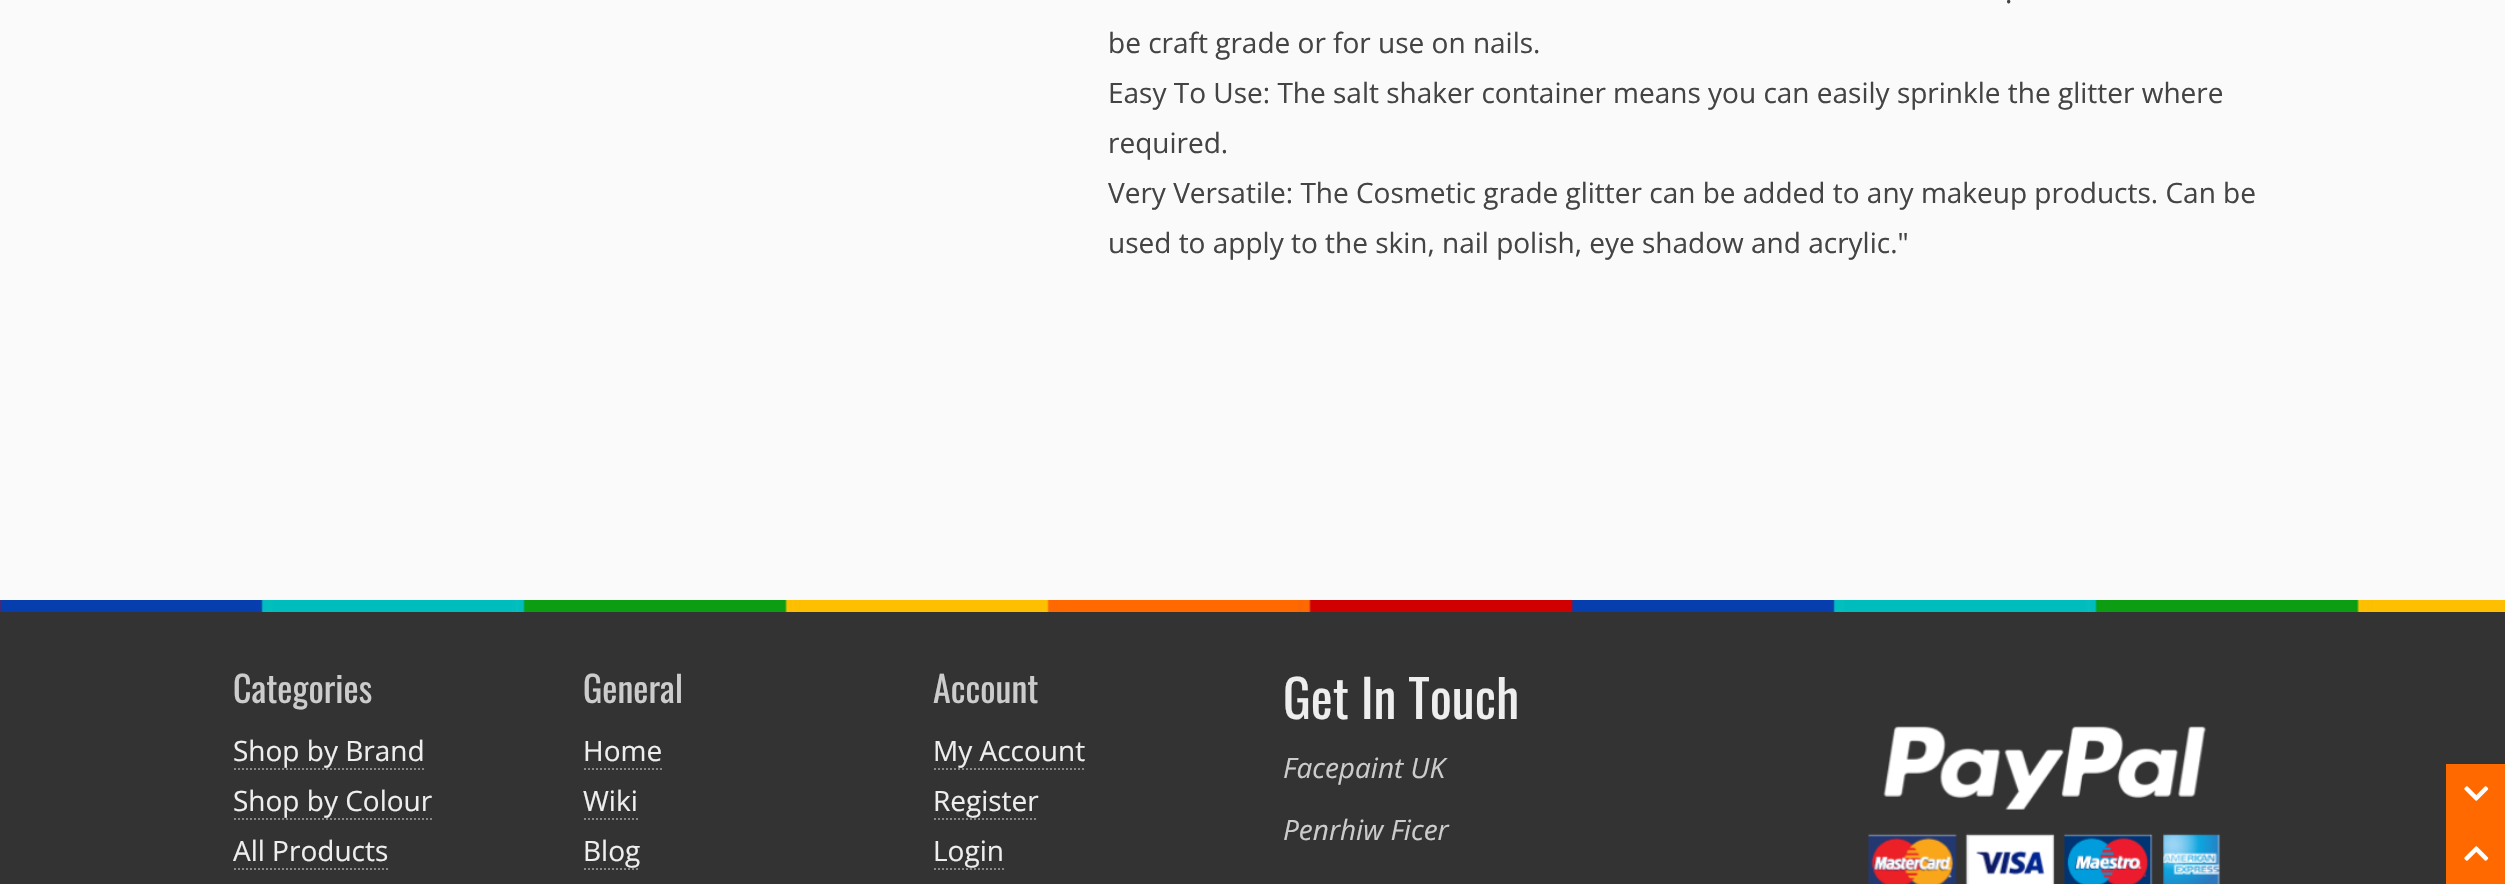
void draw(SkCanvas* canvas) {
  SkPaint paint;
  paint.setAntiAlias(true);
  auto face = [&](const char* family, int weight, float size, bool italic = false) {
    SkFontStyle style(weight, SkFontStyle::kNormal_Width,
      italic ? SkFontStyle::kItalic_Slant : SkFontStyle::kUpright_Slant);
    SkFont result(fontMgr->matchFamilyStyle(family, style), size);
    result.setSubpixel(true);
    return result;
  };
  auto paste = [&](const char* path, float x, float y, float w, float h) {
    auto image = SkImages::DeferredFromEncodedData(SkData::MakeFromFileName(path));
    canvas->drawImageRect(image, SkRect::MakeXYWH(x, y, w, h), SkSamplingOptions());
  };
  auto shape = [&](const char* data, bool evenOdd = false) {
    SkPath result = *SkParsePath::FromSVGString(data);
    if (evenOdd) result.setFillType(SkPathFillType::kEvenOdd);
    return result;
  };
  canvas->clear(0xfffafafa);
  paint.setColor(0xff333333);
  canvas->drawRect(SkRect::MakeXYWH(0, 612, 2505, 272), paint);
  paste("img/1.png", 0, 600, 2505, 12);
  paint.setStroke(true);
  paint.setStrokeWidth(2);
  paint.setColor(0xff888888);
  paint.setPathEffect(SkDashPathEffect::Make({{2, 2}}, 0));
  canvas->drawPath(shape("M234 769H424"), paint);
  paint.setPathEffect(nullptr);
  paint.setPathEffect(SkDashPathEffect::Make({{2, 2}}, 0));
  canvas->drawPath(shape("M234 819H432"), paint);
  paint.setPathEffect(nullptr);
  paint.setPathEffect(SkDashPathEffect::Make({{2, 2}}, 0));
  canvas->drawPath(shape("M234 869H388"), paint);
  paint.setPathEffect(nullptr);
  paint.setPathEffect(SkDashPathEffect::Make({{2, 2}}, 0));
  canvas->drawPath(shape("M584 769H662"), paint);
  paint.setPathEffect(nullptr);
  paint.setPathEffect(SkDashPathEffect::Make({{2, 2}}, 0));
  canvas->drawPath(shape("M584 819H638"), paint);
  paint.setPathEffect(nullptr);
  paint.setPathEffect(SkDashPathEffect::Make({{2, 2}}, 0));
  canvas->drawPath(shape("M584 869H640"), paint);
  paint.setPathEffect(nullptr);
  paint.setPathEffect(SkDashPathEffect::Make({{2, 2}}, 0));
  canvas->drawPath(shape("M934 769H1086"), paint);
  paint.setPathEffect(nullptr);
  paint.setPathEffect(SkDashPathEffect::Make({{2, 2}}, 0));
  canvas->drawPath(shape("M934 819H1038"), paint);
  paint.setPathEffect(nullptr);
  paint.setPathEffect(SkDashPathEffect::Make({{2, 2}}, 0));
  canvas->drawPath(shape("M934 869H1004"), paint);
  paint.setPathEffect(nullptr);
  paste("img/2.png", 1868, 726, 353, 158);
  paint.setStroke(false);
  paint.setColor(0xffff6900);
  canvas->drawRect(SkRect::MakeXYWH(2446, 764, 59, 120), paint);
  paste("img/3.png", 2464, 786, 25, 15);
  paste("img/4.png", 2464, 846, 25, 15);
  auto f0 = face("Open Sans", 400, 28);
  paint.setColor(0xff444444);
  {
    const struct { const char* s; float x, y; } items[] = {
      {".", 2005, 3},
      {"be craft grade or for use on nails.", 1108, 53},
      {"Easy To Use: The salt shaker container means you can easily sprinkle the glitter where", 1108, 103},
      {"required.", 1108, 153},
      {"Very Versatile: The Cosmetic grade glitter can be added to any makeup products. Can be", 1108, 203},
      {"used to apply to the skin, nail polish, eye shadow and acrylic.\"", 1108, 253},
    };
    for (auto [s, x, y] : items) {
      canvas->drawString(s, x, y, f0, paint);
    }
  }
  auto f1 = face("Oswald", 400, 36);
  paint.setColor(0xffcccccc);
  canvas->drawString("Categories", 233, 703, f1, paint);
  paint.setColor(0xffeeeeee);
  {
    const struct { const char* s; float x, y; } items[] = {
      {"Shop by Brand", 233, 761},
      {"Shop by Colour", 233, 811},
      {"All Products", 233, 861},
    };
    for (auto [s, x, y] : items) {
      canvas->drawString(s, x, y, f0, paint);
    }
  }
  paint.setColor(0xffcccccc);
  canvas->drawString("General", 583, 703, f1, paint);
  paint.setColor(0xffeeeeee);
  {
    const struct { const char* s; float x, y; } items[] = {
      {"Home", 583, 761},
      {"Wiki", 583, 811},
      {"Blog", 583, 861},
    };
    for (auto [s, x, y] : items) {
      canvas->drawString(s, x, y, f0, paint);
    }
  }
  paint.setColor(0xffcccccc);
  canvas->drawString("Account", 933, 703, f1, paint);
  paint.setColor(0xffeeeeee);
  {
    const struct { const char* s; float x, y; } items[] = {
      {"My Account", 933, 761},
      {"Register", 933, 811},
      {"Login", 933, 861},
    };
    for (auto [s, x, y] : items) {
      canvas->drawString(s, x, y, f0, paint);
    }
  }
  auto f2 = face("Oswald", 400, 52);
  canvas->drawString("Get In Touch", 1283, 719, f2, paint);
  auto f3 = face("Open Sans", 400, 28, true);
  paint.setColor(0xffcccccc);
  canvas->drawString("Facepaint UK", 1283, 778, f3, paint);
  canvas->drawString("Penrhiw Ficer", 1283, 840, f3, paint);
}
